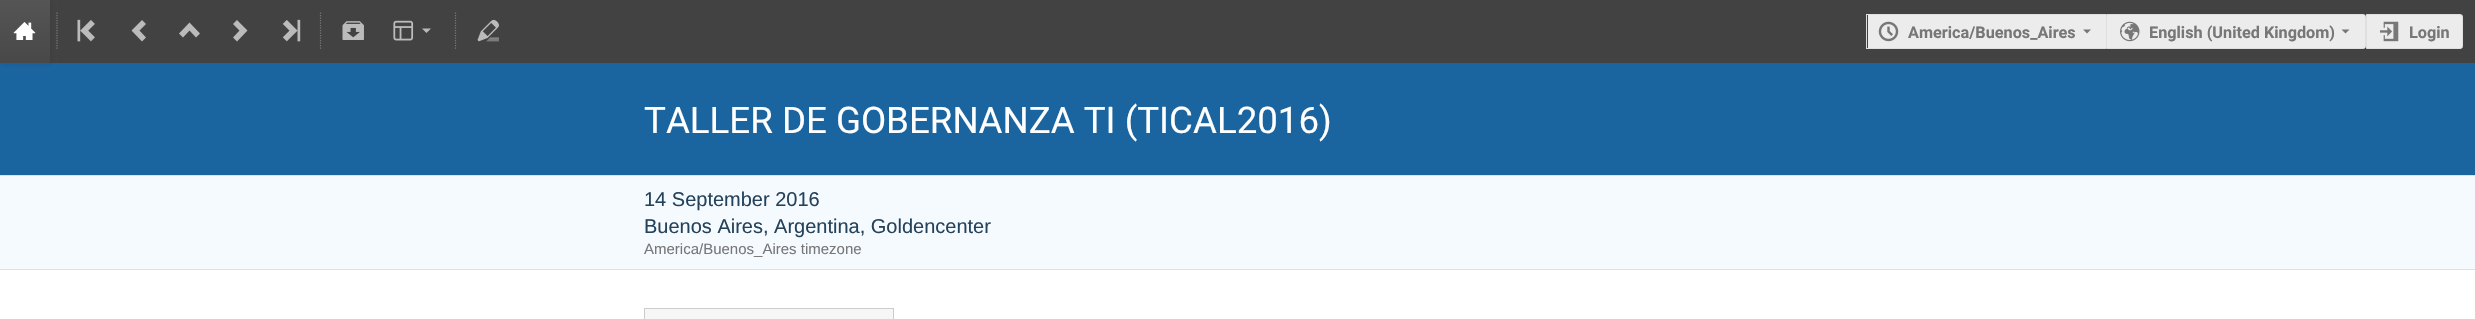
void draw(SkCanvas* canvas) {
  SkPaint paint;
  paint.setAntiAlias(true);
  auto face = [&](const char* family, int weight, float size, bool italic = false) {
    SkFontStyle style(weight, SkFontStyle::kNormal_Width,
      italic ? SkFontStyle::kItalic_Slant : SkFontStyle::kUpright_Slant);
    SkFont result(fontMgr->matchFamilyStyle(family, style), size);
    result.setSubpixel(true);
    return result;
  };
  auto paste = [&](const char* path, float x, float y, float w, float h) {
    auto image = SkImages::DeferredFromEncodedData(SkData::MakeFromFileName(path));
    canvas->drawImageRect(image, SkRect::MakeXYWH(x, y, w, h), SkSamplingOptions());
  };
  auto shape = [&](const char* data, bool evenOdd = false) {
    SkPath result = *SkParsePath::FromSVGString(data);
    if (evenOdd) result.setFillType(SkPathFillType::kEvenOdd);
    return result;
  };
  canvas->clear(0xffffffff);
  paint.setColor(0xff424242);
  canvas->drawRect(SkRect::MakeXYWH(50, 0, 2425, 63), paint);
  paint.setColor(0xff1a64a0);
  canvas->drawRect(SkRect::MakeXYWH(0, 63, 2475, 112), paint);
  paint.setColor(0x1a141414);
  paint.setMaskFilter(SkMaskFilter::MakeBlur(kNormal_SkBlurStyle, 2.5f));
  canvas->drawRect(SkRect::MakeXYWH(1, 1, 50, 63), paint);
  paint.setMaskFilter(nullptr);
  {
    const SkColor colors[] = {0xff555555, 0xff484848};
    const float stops[] = {0, 1};
    const SkPoint ends[] = {{25, 0}, {25, 63}};
    paint.setShader(SkGradientShader::MakeLinear(ends, colors, stops, 2, SkTileMode::kClamp));
    paint.setAlpha(255);
  }
  canvas->drawRect(SkRect::MakeXYWH(0, 0, 50, 63), paint);
  paste("img/1.png", 13, 22, 23, 18);
  paint.setStroke(true);
  paint.setStrokeWidth(1.2f);
  paint.setShader(nullptr);
  paint.setColor(0xff777777);
  paint.setPathEffect(SkDashPathEffect::Make({{1.25f, 1.25f}}, 0));
  canvas->drawPath(shape("M57 12.5V50"), paint);
  paint.setPathEffect(nullptr);
  paste("img/2.png", 77, 19, 18, 23);
  paint.setStroke(false);
  paint.setColor(0xffbbbbbb);
  canvas->drawPath(shape("M142 41.5L146 37.5L139.5 30.5L146 24L142 20L131.5 30.5Z"), paint);
  canvas->drawPath(shape("M179 33.5L183 37.5L189.5 30.5L196 37.5L200 33.5L189.5 22.5Z"), paint);
  canvas->drawPath(shape("M237 20L233 24L239.5 30.5L233 37.5L237 41.5L247.5 30.5Z"), paint);
  paste("img/3.png", 282, 19, 19, 23);
  paint.setStroke(true);
  paint.setColor(0xff777777);
  paint.setPathEffect(SkDashPathEffect::Make({{1.25f, 1.25f}}, 0));
  canvas->drawPath(shape("M320.5 12.5V50"), paint);
  paint.setPathEffect(nullptr);
  paste("img/4.png", 342, 21, 22, 19);
  paste("img/5.png", 393, 20, 21, 21);
  paint.setStroke(false);
  paint.setColor(0xffbbbbbb);
  canvas->drawPath(shape("M422 28.5L426.5 33L431 28.5Z"), paint);
  paint.setStroke(true);
  paint.setColor(0xff777777);
  paint.setPathEffect(SkDashPathEffect::Make({{1.25f, 1.25f}}, 0));
  canvas->drawPath(shape("M455.5 12.5V50"), paint);
  paint.setPathEffect(nullptr);
  paste("img/6.png", 477, 19, 22, 23);
  paint.setStroke(false);
  {
    const struct { float x, y, w, h; SkColor color; } items[] = {
      {1868, 15, 238, 33, 0xffececec},
      {1866, 14, 240, 1, 0xffdfdfdf},
      {1866, 48, 240, 1, 0xffdfdfdf},
      {1866, 14, 1, 35, 0xffdfdfdf},
    };
    for (auto [x, y, w, h, color] : items) {
      paint.setColor(color);
      canvas->drawRect(SkRect::MakeXYWH(x, y, w, h), paint);
    }
  }
  paste("img/7.png", 1878, 21, 21, 21);
  paint.setColor(0xff777777);
  canvas->drawPath(shape("M2083 29.5L2087 33.5L2091 29.5Z"), paint);
  paint.setColor(0xffececec);
  canvas->drawPath(shape("M2106.5 14.5H2363.5C2364.5 14.5 2365.5 15.5 2365.5 16.5V46.5C2365.5 47.5 2364.5 48.5 2363.5 48.5H2106.5Z"), paint);
  paint.setStroke(true);
  paint.setStrokeWidth(1);
  paint.setColor(0xffdfdfdf);
  canvas->drawPath(shape("M2106.5 14.5H2363.5C2364.5 14.5 2365.5 15.5 2365.5 16.5V46.5C2365.5 47.5 2364.5 48.5 2363.5 48.5H2106.5Z"), paint);
  paste("img/8.png", 2120, 21, 20, 21);
  paint.setStroke(false);
  paint.setColor(0xff777777);
  canvas->drawPath(shape("M2341.5 29.5L2345.5 33.5L2349.5 29.5Z"), paint);
  paint.setColor(0xffececec);
  canvas->drawPath(shape("M2366.5 14.5H2460.5C2461.5 14.5 2462.5 15.5 2462.5 16.5V46.5C2462.5 47.5 2461.5 48.5 2460.5 48.5H2366.5Z"), paint);
  paint.setStroke(true);
  paint.setColor(0xffdfdfdf);
  canvas->drawPath(shape("M2366.5 14.5H2460.5C2461.5 14.5 2462.5 15.5 2462.5 16.5V46.5C2462.5 47.5 2461.5 48.5 2460.5 48.5H2366.5Z"), paint);
  paste("img/9.png", 2380, 21, 19, 21);
  paint.setStroke(false);
  {
    const struct { float x, y, w, h; SkColor color; } items[] = {
      {0, 176, 2475, 93, 0xfff5faff},
      {0, 175, 2475, 1, 0xffd5e4f1},
      {0, 269, 2475, 1, 0xffd5e4f1},
    };
    for (auto [x, y, w, h, color] : items) {
      paint.setColor(color);
      canvas->drawRect(SkRect::MakeXYWH(x, y, w, h), paint);
    }
  }
  paint.setColor(0xfff6f6f6);
  canvas->drawRect(SkRect::MakeXYWH(644.5f, 308.5f, 249, 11), paint);
  paint.setStroke(true);
  paint.setColor(0xffcccccc);
  canvas->drawRect(SkRect::MakeXYWH(644.5f, 308.5f, 249, 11), paint);
  auto f0 = face("Roboto", 700, 16.25f);
  paint.setStroke(false);
  paint.setColor(0xff777777);
  {
    const struct { const char* s; float x, y; } items[] = {
      {"America/Buenos_Aires", 1908, 38},
      {"English (United Kingdom)", 2149, 38},
      {"Login", 2409, 38},
    };
    for (auto [s, x, y] : items) {
      canvas->drawString(s, x, y, f0, paint);
    }
  }
  auto f1 = face("Roboto", 400, 36.7f);
  paint.setColor(0xffffffff);
  canvas->drawString("TALLER DE GOBERNANZA TI (TICAL2016)", 644, 133, f1, paint);
  auto f2 = face("Liberation Sans", 400, 20);
  paint.setColor(0xff24425a);
  canvas->drawString("14 September 2016", 644, 206, f2, paint);
  canvas->drawString("Buenos Aires, Argentina, Goldencenter", 644, 233, f2, paint);
  auto f3 = face("Liberation Sans", 400, 15);
  paint.setColor(0xff777777);
  canvas->drawString("America/Buenos_Aires timezone", 644, 254, f3, paint);
}
